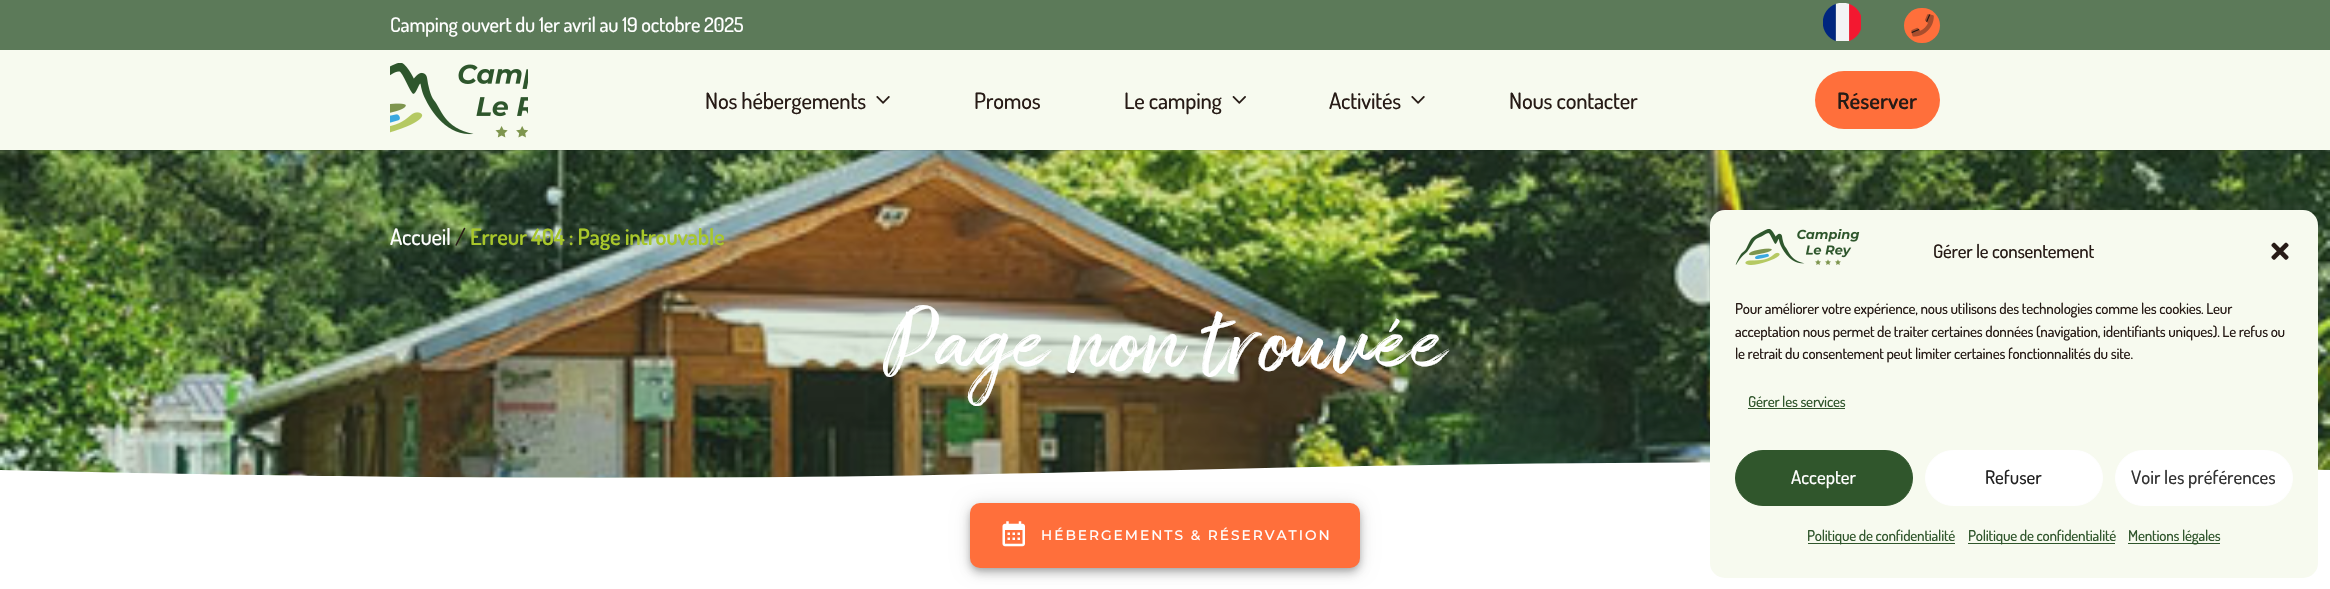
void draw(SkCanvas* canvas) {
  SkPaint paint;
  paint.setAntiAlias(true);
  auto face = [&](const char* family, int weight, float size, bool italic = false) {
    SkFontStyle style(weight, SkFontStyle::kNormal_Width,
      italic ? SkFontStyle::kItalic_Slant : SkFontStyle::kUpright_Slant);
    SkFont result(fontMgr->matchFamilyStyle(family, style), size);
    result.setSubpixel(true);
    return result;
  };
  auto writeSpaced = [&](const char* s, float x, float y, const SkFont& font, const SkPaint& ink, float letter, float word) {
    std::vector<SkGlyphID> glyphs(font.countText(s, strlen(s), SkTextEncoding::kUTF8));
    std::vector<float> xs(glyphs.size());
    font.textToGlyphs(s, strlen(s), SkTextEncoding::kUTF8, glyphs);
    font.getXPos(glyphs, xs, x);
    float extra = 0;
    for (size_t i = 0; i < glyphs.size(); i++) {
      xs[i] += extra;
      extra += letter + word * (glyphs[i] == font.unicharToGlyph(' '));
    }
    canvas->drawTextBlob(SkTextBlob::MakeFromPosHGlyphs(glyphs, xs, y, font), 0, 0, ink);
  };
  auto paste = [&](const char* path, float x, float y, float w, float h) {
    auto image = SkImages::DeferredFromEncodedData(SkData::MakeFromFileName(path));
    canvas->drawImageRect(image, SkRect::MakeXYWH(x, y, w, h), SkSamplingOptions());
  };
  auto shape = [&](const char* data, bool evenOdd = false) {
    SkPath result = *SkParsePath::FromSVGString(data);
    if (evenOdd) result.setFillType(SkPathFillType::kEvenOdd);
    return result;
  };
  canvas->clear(0xffffffff);
  paint.setColor(0xffdde9db);
  canvas->drawRect(SkRect::MakeXYWH(427, 477, 363, 1), paint);
  paint.setColor(0xff5c7a59);
  canvas->drawRect(SkRect::MakeXYWH(0, 0, 2330, 50), paint);
  paste("img/1.png", 1823, 3, 38, 38);
  paint.setColor(0xffff6f3b);
  canvas->drawRoundRect(SkRect::MakeXYWH(1904, 8, 36, 35), 17.5f, 17.5f, paint);
  paste("img/2.png", 1911, 14, 20, 20);
  paste("img/3.png", 1911, 14, 23, 23);
  paste("img/7.png", 0, 150, 2330, 328);
  paint.setColor(0x14000000);
  canvas->drawRect(SkRect::MakeXYWH(0, 150, 2330, 1), paint);
  paint.setColor(0xfff7faef);
  canvas->drawRect(SkRect::MakeXYWH(0, 50, 2330, 100), paint);
  paste("img/4.png", 390, 63, 138, 75);
  paste("img/5.png", 876, 96, 14, 8);
  paste("img/6.png", 1232, 96, 14, 8);
  paste("img/5.png", 1411, 96, 14, 8);
  paint.setColor(0xffff6f3b);
  canvas->drawRoundRect(SkRect::MakeXYWH(1815, 71, 125, 58), 29, 29, paint);
  paint.setColor(0xffffffff);
  canvas->drawPath(shape("M2330 470C1165 444 1165 497 0 470V479H2330Z"), paint);
  paint.setColor(0xfff7faef);
  canvas->drawRoundRect(SkRect::MakeXYWH(1710, 210, 608, 368), 15, 15, paint);
  paste("img/8.png", 1735, 229, 125, 36);
  paste("img/9.png", 2271, 242, 18, 18);
  paint.setColor(0xff30562c);
  canvas->drawRect(SkRect::MakeXYWH(1748, 408, 97, 1), paint);
  canvas->drawRoundRect(SkRect::MakeXYWH(1735.5f, 450.5f, 177, 55), 27.5f, 27.5f, paint);
  paint.setStroke(true);
  paint.setStrokeWidth(1);
  canvas->drawRoundRect(SkRect::MakeXYWH(1735.5f, 450.5f, 177, 55), 27.5f, 27.5f, paint);
  paint.setStroke(false);
  paint.setColor(0xffffffff);
  canvas->drawRoundRect(SkRect::MakeXYWH(1925.5f, 450.5f, 177, 55), 27.5f, 27.5f, paint);
  paint.setStroke(true);
  canvas->drawRoundRect(SkRect::MakeXYWH(1925.5f, 450.5f, 177, 55), 27.5f, 27.5f, paint);
  paint.setStroke(false);
  canvas->drawRoundRect(SkRect::MakeXYWH(2115.5f, 450.5f, 177, 55), 27.5f, 27.5f, paint);
  paint.setStroke(true);
  canvas->drawRoundRect(SkRect::MakeXYWH(2115.5f, 450.5f, 177, 55), 27.5f, 27.5f, paint);
  paint.setStroke(false);
  {
    const struct { float x, y, w, h; SkColor color; } items[] = {
      {1808, 543, 147, 1, 0xff30562c},
      {1968, 543, 147, 1, 0xff30562c},
      {2128, 543, 92, 1, 0xff30562c},
    };
    for (auto [x, y, w, h, color] : items) {
      paint.setColor(color);
      canvas->drawRect(SkRect::MakeXYWH(x, y, w, h), paint);
    }
  }
  paint.setColor(0x1f000000);
  paint.setMaskFilter(SkMaskFilter::MakeBlur(kNormal_SkBlurStyle, 9));
  canvas->drawRoundRect(SkRect::MakeXYWH(970, 504, 390, 65), 10, 10, paint);
  paint.setMaskFilter(nullptr);
  paint.setColor(0x24000000);
  paint.setMaskFilter(SkMaskFilter::MakeBlur(kNormal_SkBlurStyle, 5));
  canvas->drawRoundRect(SkRect::MakeXYWH(970, 509, 390, 65), 10, 10, paint);
  paint.setMaskFilter(nullptr);
  paint.setColor(0x33000000);
  paint.setMaskFilter(SkMaskFilter::MakeBlur(kNormal_SkBlurStyle, 3));
  canvas->drawRoundRect(SkRect::MakeXYWH(971, 508, 388, 62), 9, 9, paint);
  paint.setMaskFilter(nullptr);
  paint.setColor(0xffff6f3b);
  canvas->drawRoundRect(SkRect::MakeXYWH(970, 503, 390, 65), 10, 10, paint);
  paste("img/10.png", 1002, 521, 23, 26);
  auto f0 = face("Dosis", 500, 20.25f);
  paint.setColor(0xffffffff);
  writeSpaced("Camping ouvert du 1er avril au 19 octobre 2025", 390, 32, f0, paint, -0.22f, 0);
  auto f1 = face("Dosis", 500, 22.5f);
  paint.setColor(0xff271b16);
  {
    const struct { const char* s; float x, y; } items[] = {
      {"Nos hébergements", 705, 109},
      {"Promos", 974, 109},
      {"Le camping", 1124, 109},
      {"Activités", 1329, 109},
      {"Nous contacter", 1509, 109},
    };
    for (auto [s, x, y] : items) {
      writeSpaced(s, x, y, f1, paint, -0.22f, 0);
    }
  }
  auto f2 = face("Dosis", 600, 22.5f);
  canvas->drawString("Réserver", 1837, 109, f2, paint);
  paint.setColor(0xffffffff);
  writeSpaced("Accueil", 390, 245, f1, paint, -0.22f, 0);
  paint.setColor(0xff271b16);
  writeSpaced("/", 455, 245, f1, paint, -0.22f, 0);
  paint.setColor(0xffa8c72b);
  writeSpaced("Erreur 404 : Page introuvable", 470, 245, f2, paint, -0.22f, 0);
  auto f3 = face("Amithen", 400, 90.75f);
  paint.setColor(0xffffffff);
  writeSpaced("Page non trouvée", 883, 366, f3, paint, 2.75f, 0);
  auto f4 = face("Dosis", 500, 18.75f);
  paint.setColor(0xff271b16);
  writeSpaced("Gérer le consentement", 1933, 258, f4, paint, -0.22f, 0);
  auto f5 = face("Dosis", 500, 15);
  {
    const struct { const char* s; float x, y; } items[] = {
      {"Pour améliorer votre expérience, nous utilisons des technologies comme les cookies. Leur", 1735, 314},
      {"acceptation nous permet de traiter certaines données (navigation, identifiants uniques). Le refus ou", 1735, 337},
      {"le retrait du consentement peut limiter certaines fonctionnalités du site.", 1735, 359},
    };
    for (auto [s, x, y] : items) {
      writeSpaced(s, x, y, f5, paint, -0.22f, 0);
    }
  }
  paint.setColor(0xff30562c);
  writeSpaced("Gérer les services", 1748, 407, f5, paint, -0.22f, 0);
  paint.setColor(0xffffffff);
  canvas->drawString("Accepter", 1791, 484, f4, paint);
  paint.setColor(0xff222222);
  canvas->drawString("Refuser", 1985, 484, f4, paint);
  paint.setColor(0xff333333);
  canvas->drawString("Voir les préférences", 2131, 484, f4, paint);
  paint.setColor(0xff30562c);
  {
    const struct { const char* s; float x, y; } items[] = {
      {"Politique de confidentialité", 1807, 541},
      {"Politique de confidentialité", 1968, 541},
      {"Mentions légales", 2128, 541},
    };
    for (auto [s, x, y] : items) {
      writeSpaced(s, x, y, f5, paint, -0.22f, 0);
    }
  }
  auto f6 = face("Montserrat", 500, 13.75f);
  paint.setColor(0xffffffff);
  writeSpaced("HÉBERGEMENTS & RÉSERVATION", 1041, 540, f6, paint, 2, 0);
}
